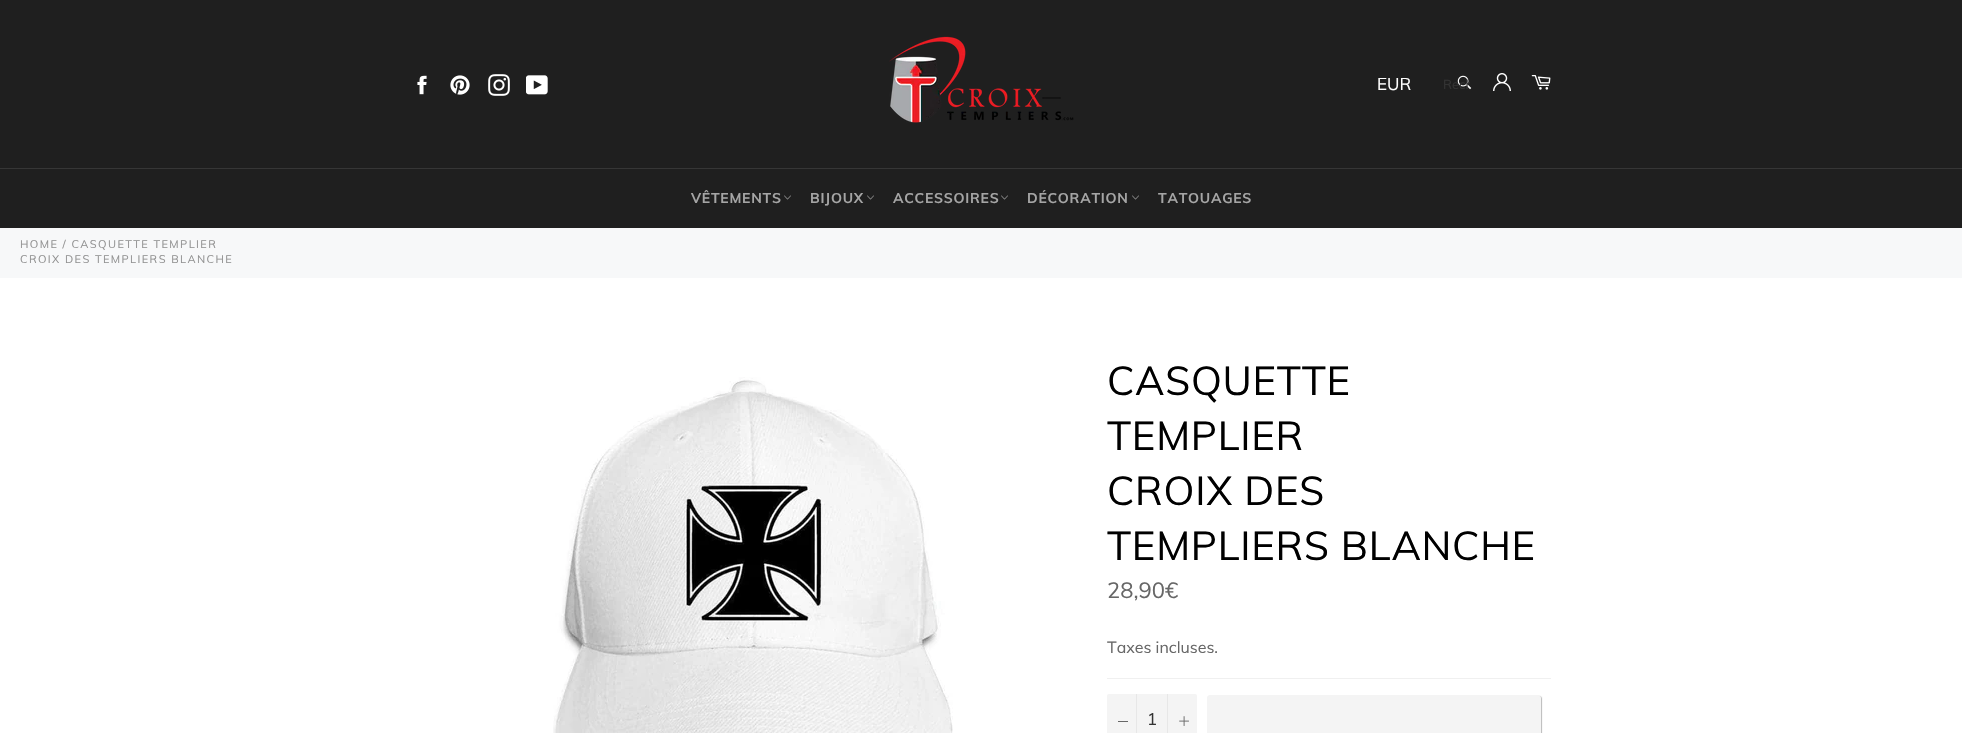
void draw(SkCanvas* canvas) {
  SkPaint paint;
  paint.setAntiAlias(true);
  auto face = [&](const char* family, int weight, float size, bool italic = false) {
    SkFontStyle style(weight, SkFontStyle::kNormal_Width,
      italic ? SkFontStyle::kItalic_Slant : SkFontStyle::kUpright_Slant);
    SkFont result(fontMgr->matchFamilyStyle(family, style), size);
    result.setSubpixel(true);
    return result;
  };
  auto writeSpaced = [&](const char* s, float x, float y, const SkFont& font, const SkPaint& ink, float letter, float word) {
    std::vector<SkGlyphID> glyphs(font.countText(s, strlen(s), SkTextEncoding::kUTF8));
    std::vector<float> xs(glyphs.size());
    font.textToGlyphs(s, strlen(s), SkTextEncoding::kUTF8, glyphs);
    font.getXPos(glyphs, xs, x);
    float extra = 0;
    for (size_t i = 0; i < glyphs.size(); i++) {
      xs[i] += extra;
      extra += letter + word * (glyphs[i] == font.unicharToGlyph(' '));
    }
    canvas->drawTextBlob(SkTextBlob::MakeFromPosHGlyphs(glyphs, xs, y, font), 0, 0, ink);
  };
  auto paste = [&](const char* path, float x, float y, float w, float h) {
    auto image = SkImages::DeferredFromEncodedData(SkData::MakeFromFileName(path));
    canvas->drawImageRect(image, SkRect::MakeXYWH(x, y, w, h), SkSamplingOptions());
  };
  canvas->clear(0xff1f1f1f);
  paste("img/1.png", 417, 75, 10, 20);
  paste("img/2.png", 450, 75, 20, 20);
  paste("img/3.png", 488, 74, 22, 22);
  paste("img/4.png", 526, 75, 22, 20);
  paste("img/5.png", 889, 36, 185, 87);
  paste("img/6.png", 1457, 75, 15, 15);
  paste("img/7.png", 1493, 73, 18, 18);
  paste("img/8.png", 1531, 75, 20, 15);
  paint.setColor(0xff363636);
  canvas->drawRect(SkRect::MakeXYWH(0, 168, 1962, 1), paint);
  paste("img/9.png", 784, 195, 7, 5);
  paste("img/9.png", 867, 195, 7, 5);
  paste("img/9.png", 1001, 195, 7, 5);
  paste("img/9.png", 1132, 195, 7, 5);
  paint.setColor(0xffffffff);
  canvas->drawRect(SkRect::MakeXYWH(0, 278, 1962, 455), paint);
  paint.setColor(0xfff7f8f9);
  canvas->drawRect(SkRect::MakeXYWH(0, 228, 1962, 50), paint);
  paste("img/10.png", 553, 377, 400, 356);
  paint.setColor(0xfff0f0f0);
  canvas->drawRect(SkRect::MakeXYWH(1107, 678, 444, 1), paint);
  paint.setColor(0xfff4f4f4);
  canvas->drawRoundRect(SkRect::MakeXYWH(1107, 694, 90, 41), 2, 2, paint);
  {
    const struct { float x, y, w, h; SkColor color; } items[] = {
      {1136, 694, 1, 39, 0xffe7e7e7},
      {1118, 721, 10, 1, 0xff676767},
      {1167, 694, 1, 39, 0xffe7e7e7},
    };
    for (auto [x, y, w, h, color] : items) {
      paint.setColor(color);
      canvas->drawRect(SkRect::MakeXYWH(x, y, w, h), paint);
    }
  }
  paste("img/11.png", 1179, 716, 10, 10);
  paint.setColor(0x45000000);
  paint.setMaskFilter(SkMaskFilter::MakeBlur(kNormal_SkBlurStyle, 0.5f));
  canvas->drawRoundRect(SkRect::MakeXYWH(1208, 696, 334, 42), 3, 3, paint);
  paint.setMaskFilter(nullptr);
  paint.setColor(0xfff4f4f4);
  canvas->drawRoundRect(SkRect::MakeXYWH(1207.5f, 695.5f, 333, 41), 2.5f, 2.5f, paint);
  paint.setStroke(true);
  paint.setStrokeWidth(1);
  canvas->drawRoundRect(SkRect::MakeXYWH(1207.5f, 695.5f, 333, 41), 2.5f, 2.5f, paint);
  auto f0 = face("Muli", 400, 17);
  paint.setStroke(false);
  paint.setColor(0xffffffff);
  canvas->drawString("EUR", 1377, 90, f0, paint);
  canvas->save();
  canvas->clipRect(SkRect::MakeXYWH(1443, 76, 27, 16));
  auto f1 = face("Muli", 400, 13);
  paint.setColor(0xff333333);
  canvas->drawString("Rech", 1443, 89, f1, paint);
  canvas->restore();
  auto f2 = face("Muli", 700, 14);
  paint.setColor(0xffa5a5a5);
  {
    const struct { const char* s; float x, y; } items[] = {
      {"VÊTEMENTS", 691, 203},
      {"BIJOUX", 810, 203},
      {"ACCESSOIRES", 893, 203},
      {"DÉCORATION", 1027, 203},
      {"TATOUAGES", 1158, 203},
    };
    for (auto [s, x, y] : items) {
      writeSpaced(s, x, y, f2, paint, 0.75f, 0);
    }
  }
  auto f3 = face("Muli", 400, 11);
  paint.setColor(0xff929292);
  writeSpaced("HOME / CASQUETTE TEMPLIER", 20, 248, f3, paint, 1.4f, 0);
  writeSpaced("CROIX DES TEMPLIERS BLANCHE", 20, 263, f3, paint, 1.4f, 0);
  auto f4 = face("Muli", 400, 40);
  paint.setColor(0xff000000);
  {
    const struct { const char* s; float x, y; } items[] = {
      {"CASQUETTE", 1107, 395},
      {"TEMPLIER", 1107, 450},
      {"CROIX DES", 1107, 505},
      {"TEMPLIERS BLANCHE", 1107, 560},
    };
    for (auto [s, x, y] : items) {
      writeSpaced(s, x, y, f4, paint, 0.75f, 0);
    }
  }
  auto f5 = face("Muli", 400, 22);
  paint.setColor(0xff676767);
  canvas->drawString("28,90€", 1107, 598, f5, paint);
  auto f6 = face("Muli", 400, 16);
  canvas->drawString("Taxes incluses.", 1107, 653, f6, paint);
  paint.setColor(0xff333333);
  canvas->drawString("1", 1147, 725, f0, paint);
}
